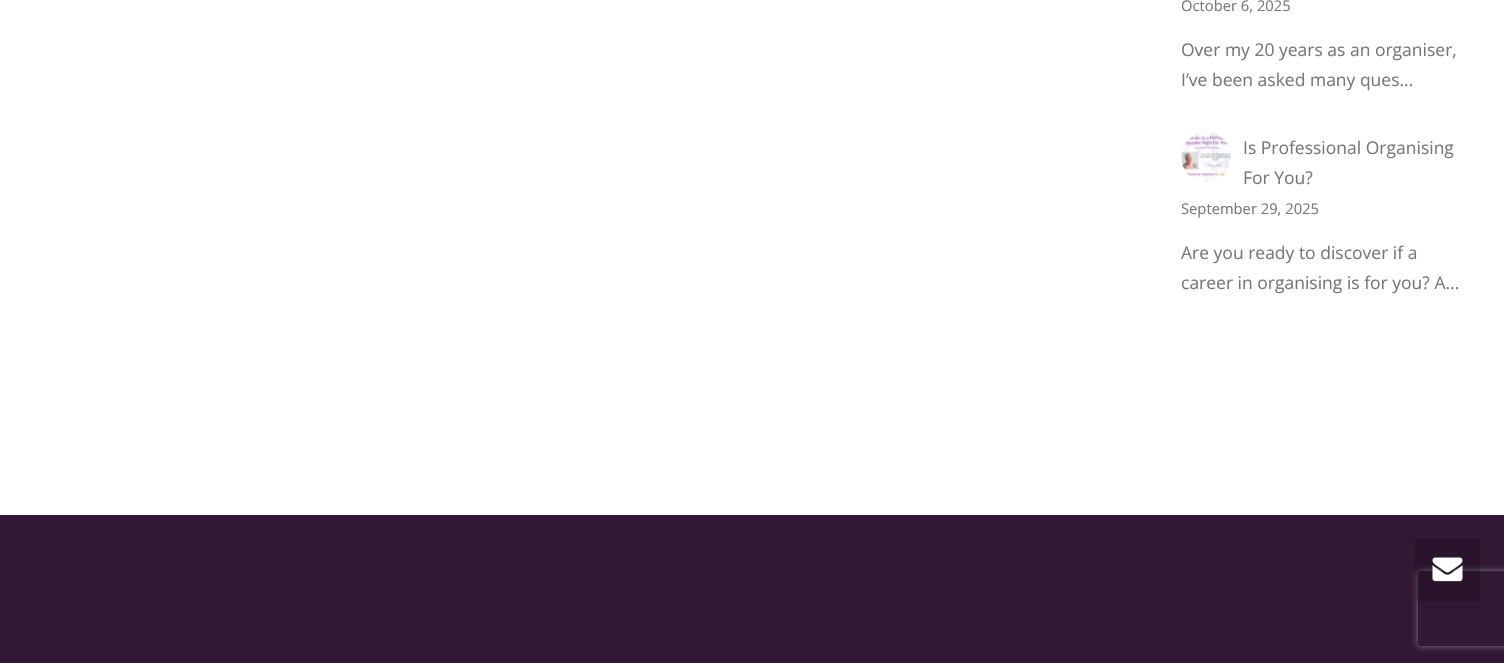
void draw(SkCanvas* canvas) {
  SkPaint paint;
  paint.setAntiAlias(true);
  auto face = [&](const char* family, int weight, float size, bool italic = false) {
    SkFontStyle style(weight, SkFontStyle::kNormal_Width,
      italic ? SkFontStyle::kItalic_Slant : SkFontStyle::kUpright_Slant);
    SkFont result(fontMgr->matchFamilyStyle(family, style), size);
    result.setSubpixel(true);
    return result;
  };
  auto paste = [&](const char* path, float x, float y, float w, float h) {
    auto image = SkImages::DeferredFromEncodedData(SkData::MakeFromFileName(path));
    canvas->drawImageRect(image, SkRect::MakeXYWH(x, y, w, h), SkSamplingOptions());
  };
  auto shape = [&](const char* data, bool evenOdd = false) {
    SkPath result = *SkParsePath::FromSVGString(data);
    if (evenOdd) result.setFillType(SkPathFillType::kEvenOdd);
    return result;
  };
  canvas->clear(0xffffffff);
  paste("img/1.png", 1181, 132, 50, 50);
  paint.setColor(0xff331835);
  canvas->drawRect(SkRect::MakeXYWH(0, 515, 1504, 148), paint);
  canvas->save();
  canvas->clipPath(shape("M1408 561H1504V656H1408ZM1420.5 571H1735.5C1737 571 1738 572 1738 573.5V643.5C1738 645 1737 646 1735.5 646H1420.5C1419 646 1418 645 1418 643.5V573.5C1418 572 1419 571 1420.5 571Z", true), true);
  paint.setColor(0xff808080);
  paint.setMaskFilter(SkMaskFilter::MakeBlur(kNormal_SkBlurStyle, 3));
  canvas->drawRoundRect(SkRect::MakeXYWH(1418, 571, 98, 75), 2.5f, 2.5f, paint);
  paint.setMaskFilter(nullptr);
  canvas->restore();
  paint.setColor(0x33000000);
  canvas->drawRoundRect(SkRect::MakeXYWH(1415, 538, 65, 63), 4, 4, paint);
  paste("img/2.png", 1432, 557, 31, 25);
  auto f0 = face("Open Sans", 400, 14.75f);
  paint.setColor(0xff777777);
  canvas->drawString("October 6, 2025", 1181, 11, f0, paint);
  auto f1 = face("Open Sans", 400, 17.5f);
  {
    const struct { const char* s; float x, y; } items[] = {
      {"Over my 20 years as an organiser,", 1181, 56},
      {"I’ve been asked many ques...", 1181, 86},
      {"Is Professional Organising", 1243, 154},
      {"For You?", 1243, 184},
    };
    for (auto [s, x, y] : items) {
      canvas->drawString(s, x, y, f1, paint);
    }
  }
  canvas->drawString("September 29, 2025", 1181, 214, f0, paint);
  canvas->drawString("Are you ready to discover if a", 1181, 259, f1, paint);
  canvas->drawString("career in organising is for you? A...", 1181, 289, f1, paint);
}
